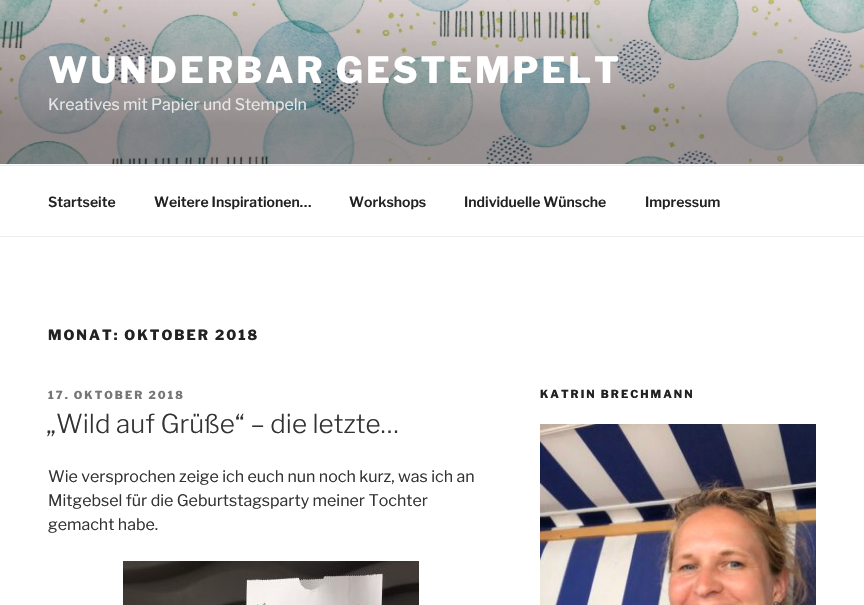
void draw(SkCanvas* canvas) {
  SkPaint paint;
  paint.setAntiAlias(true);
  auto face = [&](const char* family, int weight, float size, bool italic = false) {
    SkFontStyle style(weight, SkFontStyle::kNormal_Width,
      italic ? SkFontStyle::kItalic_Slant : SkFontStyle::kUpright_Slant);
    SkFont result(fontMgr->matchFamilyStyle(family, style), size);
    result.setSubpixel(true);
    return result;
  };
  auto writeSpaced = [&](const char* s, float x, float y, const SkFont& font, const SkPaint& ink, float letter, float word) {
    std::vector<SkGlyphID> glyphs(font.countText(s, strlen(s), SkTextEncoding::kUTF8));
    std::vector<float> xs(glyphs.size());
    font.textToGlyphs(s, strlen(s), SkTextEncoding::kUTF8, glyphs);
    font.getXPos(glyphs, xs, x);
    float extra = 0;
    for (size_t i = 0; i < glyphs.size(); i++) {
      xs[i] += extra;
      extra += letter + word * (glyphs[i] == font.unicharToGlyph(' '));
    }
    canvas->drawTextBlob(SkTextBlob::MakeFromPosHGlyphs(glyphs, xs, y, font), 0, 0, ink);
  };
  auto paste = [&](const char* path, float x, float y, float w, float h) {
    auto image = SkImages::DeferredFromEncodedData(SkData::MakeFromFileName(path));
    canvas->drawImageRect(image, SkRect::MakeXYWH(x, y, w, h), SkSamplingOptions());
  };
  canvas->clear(0xffffffff);
  paint.setColor(0xfffafafa);
  canvas->drawRect(SkRect::MakeXYWH(0, 164, 864, 1), paint);
  paste("img/1.png", 0, 0, 864, 164);
  paint.setColor(0xffeeeeee);
  canvas->drawRect(SkRect::MakeXYWH(0, 165, 864, 1), paint);
  canvas->drawRect(SkRect::MakeXYWH(0, 236, 864, 1), paint);
  paste("img/2.png", 123, 561, 296, 44);
  paste("img/3.png", 540, 424, 276, 181);
  auto f0 = face("Libre Franklin", 800, 36);
  paint.setColor(0xffffffff);
  writeSpaced("WUNDERBAR GESTEMPELT", 48, 83, f0, paint, 2.9f, 0);
  auto f1 = face("Libre Franklin", 400, 16);
  paint.setColor(0xffe8e8e9);
  canvas->drawString("Kreatives mit Papier und Stempeln", 48, 110, f1, paint);
  auto f2 = face("Libre Franklin", 600, 14);
  paint.setColor(0xff222222);
  {
    const struct { const char* s; float x, y; } items[] = {
      {"Startseite", 48, 207},
      {"Weitere Inspirationen…", 154, 207},
      {"Workshops", 349, 207},
      {"Individuelle Wünsche", 464, 207},
      {"Impressum", 645, 207},
    };
    for (auto [s, x, y] : items) {
      canvas->drawString(s, x, y, f2, paint);
    }
  }
  auto f3 = face("Libre Franklin", 800, 14);
  writeSpaced("MONAT: OKTOBER 2018", 48, 340, f3, paint, 2, 0);
  auto f4 = face("Libre Franklin", 800, 11);
  paint.setColor(0xff767676);
  writeSpaced("17. OKTOBER 2018", 48, 399, f4, paint, 2, 0);
  auto f5 = face("Libre Franklin", 300, 26);
  paint.setColor(0xff333333);
  canvas->drawString("„Wild auf Grüße“ – die letzte…", 46, 433, f5, paint);
  {
    const struct { const char* s; float x, y; } items[] = {
      {"Wie versprochen zeige ich euch nun noch kurz, was ich an", 48, 482},
      {"Mitgebsel für die Geburtstagsparty meiner Tochter", 48, 506},
      {"gemacht habe.", 48, 530},
    };
    for (auto [s, x, y] : items) {
      canvas->drawString(s, x, y, f1, paint);
    }
  }
  paint.setColor(0xff222222);
  writeSpaced("KATRIN BRECHMANN", 540, 398, f4, paint, 2, 0);
}
